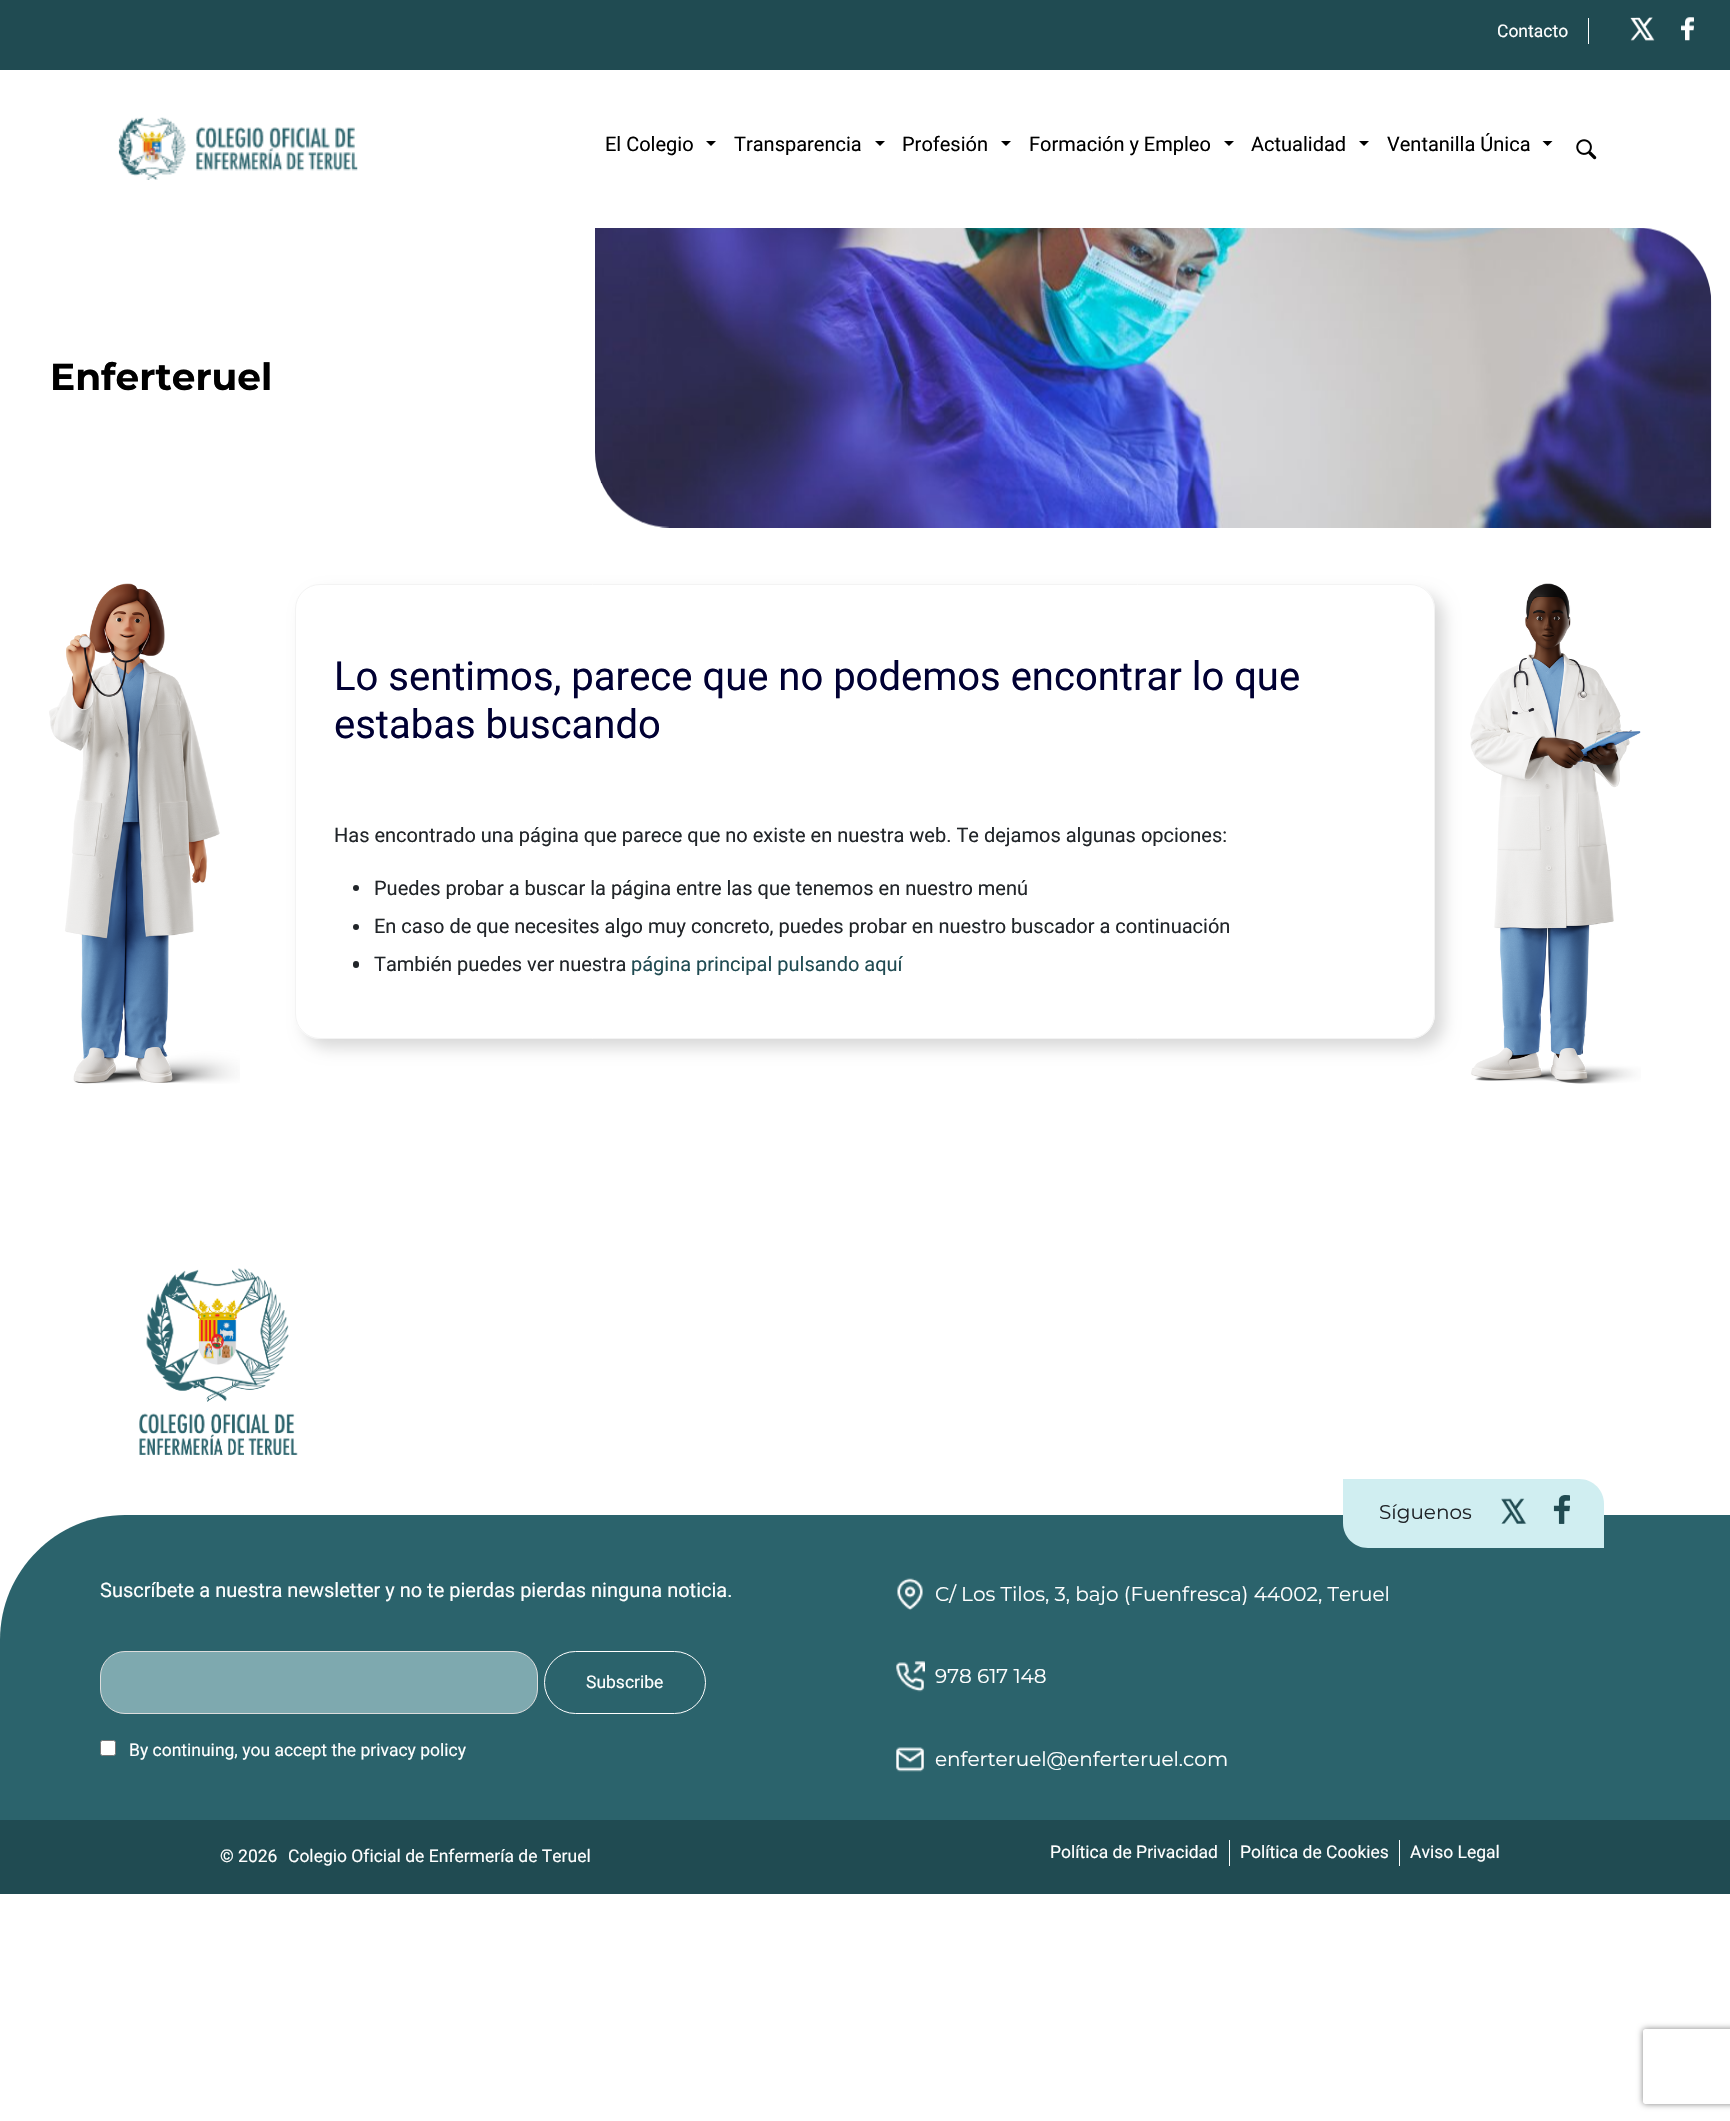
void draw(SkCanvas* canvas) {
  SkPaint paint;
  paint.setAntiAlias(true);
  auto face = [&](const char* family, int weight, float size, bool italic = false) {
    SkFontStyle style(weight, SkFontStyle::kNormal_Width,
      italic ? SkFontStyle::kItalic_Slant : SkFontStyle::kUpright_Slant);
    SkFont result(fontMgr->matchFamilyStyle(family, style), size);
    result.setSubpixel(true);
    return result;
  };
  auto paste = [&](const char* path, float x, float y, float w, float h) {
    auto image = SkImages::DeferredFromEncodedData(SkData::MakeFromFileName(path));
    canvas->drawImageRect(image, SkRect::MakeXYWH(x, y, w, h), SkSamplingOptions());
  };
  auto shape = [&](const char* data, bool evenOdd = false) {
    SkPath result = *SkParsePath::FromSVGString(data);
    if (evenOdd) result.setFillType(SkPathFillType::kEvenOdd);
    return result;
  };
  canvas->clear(0xffffffff);
  paint.setColor(0xff204b52);
  canvas->drawRect(SkRect::MakeXYWH(0, 0, 1730, 70), paint);
  paint.setColor(0xffffffff);
  canvas->drawRect(SkRect::MakeXYWH(1588, 18, 1, 26), paint);
  paste("img/1.png", 1630, 17, 25, 24);
  paste("img/2.png", 1681, 17, 13, 24);
  paste("img/3.png", 118, 117, 240, 63);
  paint.setColor(0xff000000);
  canvas->drawPath(shape("M706 141H716L711 146Z"), paint);
  canvas->drawPath(shape("M875 141H885L880 146Z"), paint);
  canvas->drawPath(shape("M1001 141H1011L1006 146Z"), paint);
  canvas->drawPath(shape("M1224 141H1234L1229 146Z"), paint);
  canvas->drawPath(shape("M1359 141H1369L1364 146Z"), paint);
  canvas->drawPath(shape("M1542.5 141H1552.5L1547.5 146Z"), paint);
  paste("img/4.png", 1576, 139, 21, 21);
  paste("img/5.png", 595, 228, 1117, 300);
  paste("img/6.png", 49, 583, 191, 501);
  canvas->save();
  canvas->clipPath(shape("M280 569H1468V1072H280ZM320 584H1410C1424 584 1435 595 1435 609V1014C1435 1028 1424 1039 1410 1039H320C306 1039 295 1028 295 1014V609C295 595 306 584 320 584Z", true), true);
  paint.setColor(0x26000000);
  paint.setMaskFilter(SkMaskFilter::MakeBlur(kNormal_SkBlurStyle, 7.5f));
  canvas->drawRoundRect(SkRect::MakeXYWH(304, 593, 1140, 455), 25, 25, paint);
  paint.setMaskFilter(nullptr);
  canvas->restore();
  paint.setStroke(true);
  paint.setStrokeWidth(1);
  paint.setColor(0xfff3f3f3);
  canvas->drawRoundRect(SkRect::MakeXYWH(295.5f, 584.5f, 1139, 454), 24.5f, 24.5f, paint);
  paint.setStroke(false);
  paint.setColor(0xff212529);
  canvas->drawCircle(356, 888, 3, paint);
  canvas->drawCircle(356, 927, 3, paint);
  canvas->drawRoundRect(SkRect::MakeXYWH(353, 961, 6, 7), 3, 3, paint);
  paste("img/7.png", 1470, 583, 171, 501);
  paste("img/8.png", 139, 1268, 159, 187);
  paint.setColor(0xff2b636c);
  canvas->drawPath(shape("M125 1515H1730V1820H0V1640C0 1571 56 1515 125 1515Z"), paint);
  paint.setColor(0xffd0eef1);
  canvas->drawPath(shape("M1343 1479H1579C1593 1479 1604 1490 1604 1504V1548H1368C1354 1548 1343 1537 1343 1523Z"), paint);
  paste("img/9.png", 1501, 1498, 26, 26);
  paste("img/10.png", 1553, 1495, 17, 29);
  paint.setColor(0xff7ea9af);
  canvas->drawRoundRect(SkRect::MakeXYWH(100.5f, 1651.5f, 437, 62), 24.5f, 24.5f, paint);
  paint.setStroke(true);
  paint.setColor(0xffdddddd);
  canvas->drawRoundRect(SkRect::MakeXYWH(100.5f, 1651.5f, 437, 62), 24.5f, 24.5f, paint);
  paint.setColor(0xffffffff);
  canvas->drawRoundRect(SkRect::MakeXYWH(544.5f, 1651.5f, 161, 62), 31, 31, paint);
  paint.setStroke(false);
  canvas->drawRoundRect(SkRect::MakeXYWH(100.5f, 1740.5f, 15, 15), 2, 2, paint);
  paint.setStroke(true);
  paint.setColor(0xff767676);
  canvas->drawRoundRect(SkRect::MakeXYWH(100.5f, 1740.5f, 15, 15), 2, 2, paint);
  paste("img/11.png", 897, 1578, 26, 32);
  paste("img/12.png", 896, 1661, 29, 31);
  paste("img/13.png", 896, 1747, 28, 25);
  paint.setStroke(false);
  {
    const struct { float x, y, w, h; SkColor color; } items[] = {
      {0, 1820, 1730, 74, 0xff204b52},
      {1229, 1840, 1, 26, 0xffffffff},
      {1399, 1840, 1, 26, 0xffffffff},
    };
    for (auto [x, y, w, h, color] : items) {
      paint.setColor(color);
      canvas->drawRect(SkRect::MakeXYWH(x, y, w, h), paint);
    }
  }
  canvas->save();
  canvas->clipPath(shape("M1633 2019H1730V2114H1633ZM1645.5 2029H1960.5C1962 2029 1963 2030 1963 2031.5V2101.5C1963 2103 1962 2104 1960.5 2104H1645.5C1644 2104 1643 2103 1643 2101.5V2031.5C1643 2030 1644 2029 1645.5 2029Z", true), true);
  paint.setColor(0xff808080);
  paint.setMaskFilter(SkMaskFilter::MakeBlur(kNormal_SkBlurStyle, 3));
  canvas->drawRoundRect(SkRect::MakeXYWH(1643, 2029, 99, 75), 2.5f, 2.5f, paint);
  paint.setMaskFilter(nullptr);
  canvas->restore();
  auto f0 = face("Roboto", 400, 17.5f);
  paint.setColor(0xffffffff);
  canvas->drawString("Contacto", 1497, 37, f0, paint);
  auto f1 = face("Roboto", 400, 20);
  paint.setColor(0xff000000);
  {
    const struct { const char* s; float x, y; } items[] = {
      {"El Colegio", 605, 151},
      {"Transparencia", 734, 151},
      {"Profesión", 902, 151},
      {"Formación y Empleo", 1029, 151},
      {"Actualidad", 1251, 151},
      {"Ventanilla Única", 1387, 151},
    };
    for (auto [s, x, y] : items) {
      canvas->drawString(s, x, y, f1, paint);
    }
  }
  auto f2 = face("Montserrat", 700, 37.5f);
  canvas->drawString("Enferteruel", 50, 390, f2, paint);
  auto f3 = face("Roboto", 400, 40);
  paint.setColor(0xff000033);
  canvas->drawString("Lo sentimos, parece que no podemos encontrar lo que", 334, 690, f3, paint);
  canvas->drawString("estabas buscando", 334, 738, f3, paint);
  paint.setColor(0xff212529);
  {
    const struct { const char* s; float x, y; } items[] = {
      {"Has encontrado una página que parece que no existe en nuestra web. Te dejamos algunas opciones:", 334, 842},
      {"Puedes probar a buscar la página entre las que tenemos en nuestro menú", 374, 895},
      {"En caso de que necesites algo muy concreto, puedes probar en nuestro buscador a continuación", 374, 933},
      {"También puedes ver nuestra", 374, 971},
    };
    for (auto [s, x, y] : items) {
      canvas->drawString(s, x, y, f1, paint);
    }
  }
  paint.setColor(0xff204b52);
  canvas->drawString("página principal pulsando aquí", 631, 971, f1, paint);
  auto f4 = face("Montserrat", 400, 20);
  paint.setColor(0xff212529);
  canvas->drawString("Síguenos", 1379, 1519, f4, paint);
  paint.setColor(0xffffffff);
  canvas->drawString("Suscríbete a nuestra newsletter y no te pierdas pierdas ninguna noticia.", 100, 1597, f1, paint);
  canvas->drawString("Subscribe", 586, 1688, f0, paint);
  canvas->drawString("By continuing, you accept the privacy policy", 129, 1756, f0, paint);
  {
    const struct { const char* s; float x, y; } items[] = {
      {"C/ Los Tilos, 3, bajo (Fuenfresca) 44002, Teruel", 935, 1601},
      {"978 617 148", 935, 1683},
      {"enferteruel@enferteruel.com", 935, 1766},
    };
    for (auto [s, x, y] : items) {
      canvas->drawString(s, x, y, f4, paint);
    }
  }
  {
    const struct { const char* s; float x, y; } items[] = {
      {"© 2026", 220, 1862},
      {"Colegio Oficial de Enfermería de Teruel", 288, 1862},
      {"Política de Privacidad", 1050, 1858},
      {"Política de Cookies", 1240, 1858},
      {"Aviso Legal", 1410, 1858},
    };
    for (auto [s, x, y] : items) {
      canvas->drawString(s, x, y, f0, paint);
    }
  }
}
